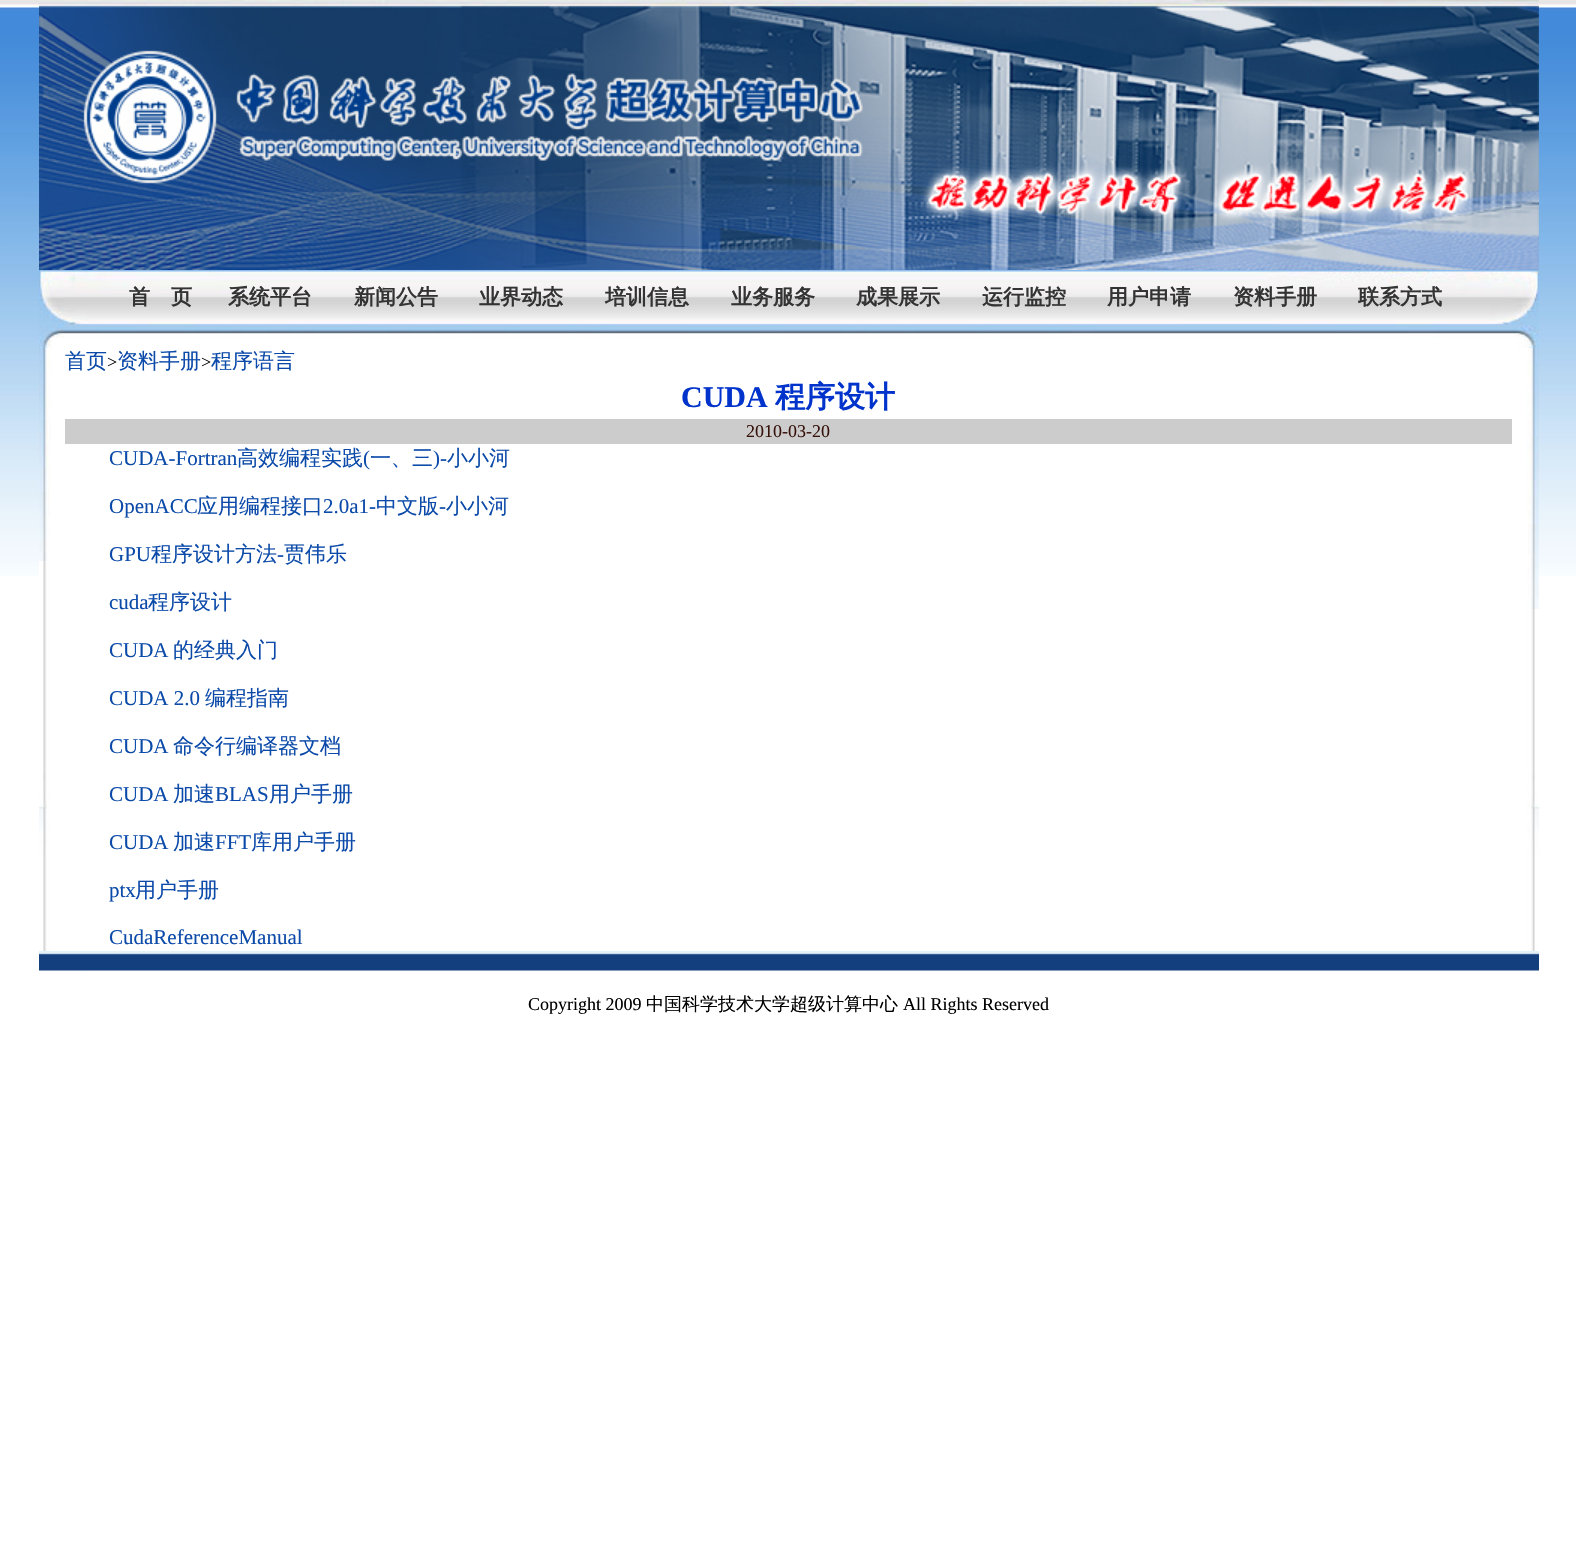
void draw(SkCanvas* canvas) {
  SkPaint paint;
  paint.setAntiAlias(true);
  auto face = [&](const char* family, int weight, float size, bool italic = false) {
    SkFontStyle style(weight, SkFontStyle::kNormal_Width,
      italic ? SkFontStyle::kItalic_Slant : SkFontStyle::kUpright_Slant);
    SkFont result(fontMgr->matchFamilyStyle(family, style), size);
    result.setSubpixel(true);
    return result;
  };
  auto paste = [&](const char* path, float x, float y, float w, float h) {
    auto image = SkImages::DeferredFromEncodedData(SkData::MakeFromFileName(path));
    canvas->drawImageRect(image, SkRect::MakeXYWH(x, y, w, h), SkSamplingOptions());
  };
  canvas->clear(0xffffffff);
  paste("img/1.png", 0, 0, 1576, 576);
  paste("img/2.png", 39, 0, 1500, 270);
  paste("img/3.png", 39, 270, 1500, 56);
  paste("img/4.png", 39, 325, 1500, 23);
  paste("img/5.png", 39, 561, 12, 390);
  paste("img/6.png", 39, 348, 12, 213);
  paint.setColor(0xffffffff);
  canvas->drawRect(SkRect::MakeXYWH(51, 348, 1476, 228), paint);
  paint.setColor(0xffcccccc);
  canvas->drawRect(SkRect::MakeXYWH(65, 419, 1447, 25), paint);
  paste("img/7.png", 1527, 609, 12, 342);
  paste("img/8.png", 1527, 348, 12, 261);
  paste("img/9.png", 39, 951, 1500, 20);
  auto f0 = face("WenQuanYi Zen Hei", 700, 21);
  paint.setColor(0xff333333);
  {
    const struct { const char* s; float x, y; } items[] = {
      {"首　页", 129, 304},
      {"系统平台", 228, 304},
      {"新闻公告", 354, 304},
      {"业界动态", 479, 304},
      {"培训信息", 605, 304},
      {"业务服务", 731, 304},
      {"成果展示", 856, 304},
      {"运行监控", 982, 304},
      {"用户申请", 1107, 304},
      {"资料手册", 1233, 304},
      {"联系方式", 1358, 304},
    };
    for (auto [s, x, y] : items) {
      canvas->drawString(s, x, y, f0, paint);
    }
  }
  auto f1 = face("WenQuanYi Zen Hei", 500, 21);
  paint.setColor(0xff0b4aa9);
  canvas->drawString("首页", 65, 368, f1, paint);
  auto f2 = face("Liberation Serif", 400, 18);
  paint.setColor(0xff000000);
  canvas->drawString(">", 107, 368, f2, paint);
  paint.setColor(0xff0b4aa9);
  canvas->drawString("资料手册", 117, 368, f1, paint);
  paint.setColor(0xff000000);
  canvas->drawString(">", 201, 368, f2, paint);
  paint.setColor(0xff0b4aa9);
  canvas->drawString("程序语言", 211, 368, f1, paint);
  auto f3 = face("Liberation Serif", 700, 30);
  paint.setColor(0xff0033cc);
  canvas->drawString("CUDA", 681, 407, f3, paint);
  auto f4 = face("WenQuanYi Zen Hei", 700, 30);
  canvas->drawString("程序设计", 775, 407, f4, paint);
  paint.setColor(0xff36120a);
  canvas->drawString("2010-03-20", 746, 437, f2, paint);
  auto f5 = face("Liberation Serif", 400, 21);
  paint.setColor(0xff0b4aa9);
  canvas->drawString("CUDA-Fortran", 109, 465, f5, paint);
  canvas->drawString("高效编程实践", 237, 465, f1, paint);
  canvas->drawString("(", 363, 465, f5, paint);
  canvas->drawString("一、三", 370, 465, f1, paint);
  canvas->drawString(")-", 433, 465, f5, paint);
  canvas->drawString("小小河", 447, 465, f1, paint);
  canvas->drawString("OpenACC", 109, 513, f5, paint);
  canvas->drawString("应用编程接口", 197, 513, f1, paint);
  canvas->drawString("2.0a1-", 323, 513, f5, paint);
  canvas->drawString("中文版", 376, 513, f1, paint);
  canvas->drawString("-", 439, 513, f5, paint);
  canvas->drawString("小小河", 446, 513, f1, paint);
  canvas->drawString("GPU", 109, 561, f5, paint);
  canvas->drawString("程序设计方法", 151, 561, f1, paint);
  canvas->drawString("-", 277, 561, f5, paint);
  canvas->drawString("贾伟乐", 284, 561, f1, paint);
  canvas->drawString("cuda", 109, 609, f5, paint);
  canvas->drawString("程序设计", 148, 609, f1, paint);
  canvas->drawString("CUDA", 109, 657, f5, paint);
  canvas->drawString("的经典入门", 173, 657, f1, paint);
  canvas->drawString("CUDA 2.0", 109, 705, f5, paint);
  canvas->drawString("编程指南", 205, 705, f1, paint);
  canvas->drawString("CUDA", 109, 753, f5, paint);
  canvas->drawString("命令行编译器文档", 173, 753, f1, paint);
  canvas->drawString("CUDA", 109, 801, f5, paint);
  canvas->drawString("加速", 173, 801, f1, paint);
  canvas->drawString("BLAS", 215, 801, f5, paint);
  canvas->drawString("用户手册", 269, 801, f1, paint);
  canvas->drawString("CUDA", 109, 849, f5, paint);
  canvas->drawString("加速", 173, 849, f1, paint);
  canvas->drawString("FFT", 215, 849, f5, paint);
  canvas->drawString("库用户手册", 251, 849, f1, paint);
  canvas->drawString("ptx", 109, 897, f5, paint);
  canvas->drawString("用户手册", 135, 897, f1, paint);
  canvas->drawString("CudaReferenceManual", 109, 944, f5, paint);
  paint.setColor(0xff000000);
  canvas->drawString("Copyright 2009", 528, 1010, f2, paint);
  auto f6 = face("WenQuanYi Zen Hei", 500, 18);
  canvas->drawString("中国科学技术大学超级计算中心", 646, 1010, f6, paint);
  canvas->drawString("All Rights Reserved", 903, 1010, f2, paint);
}
